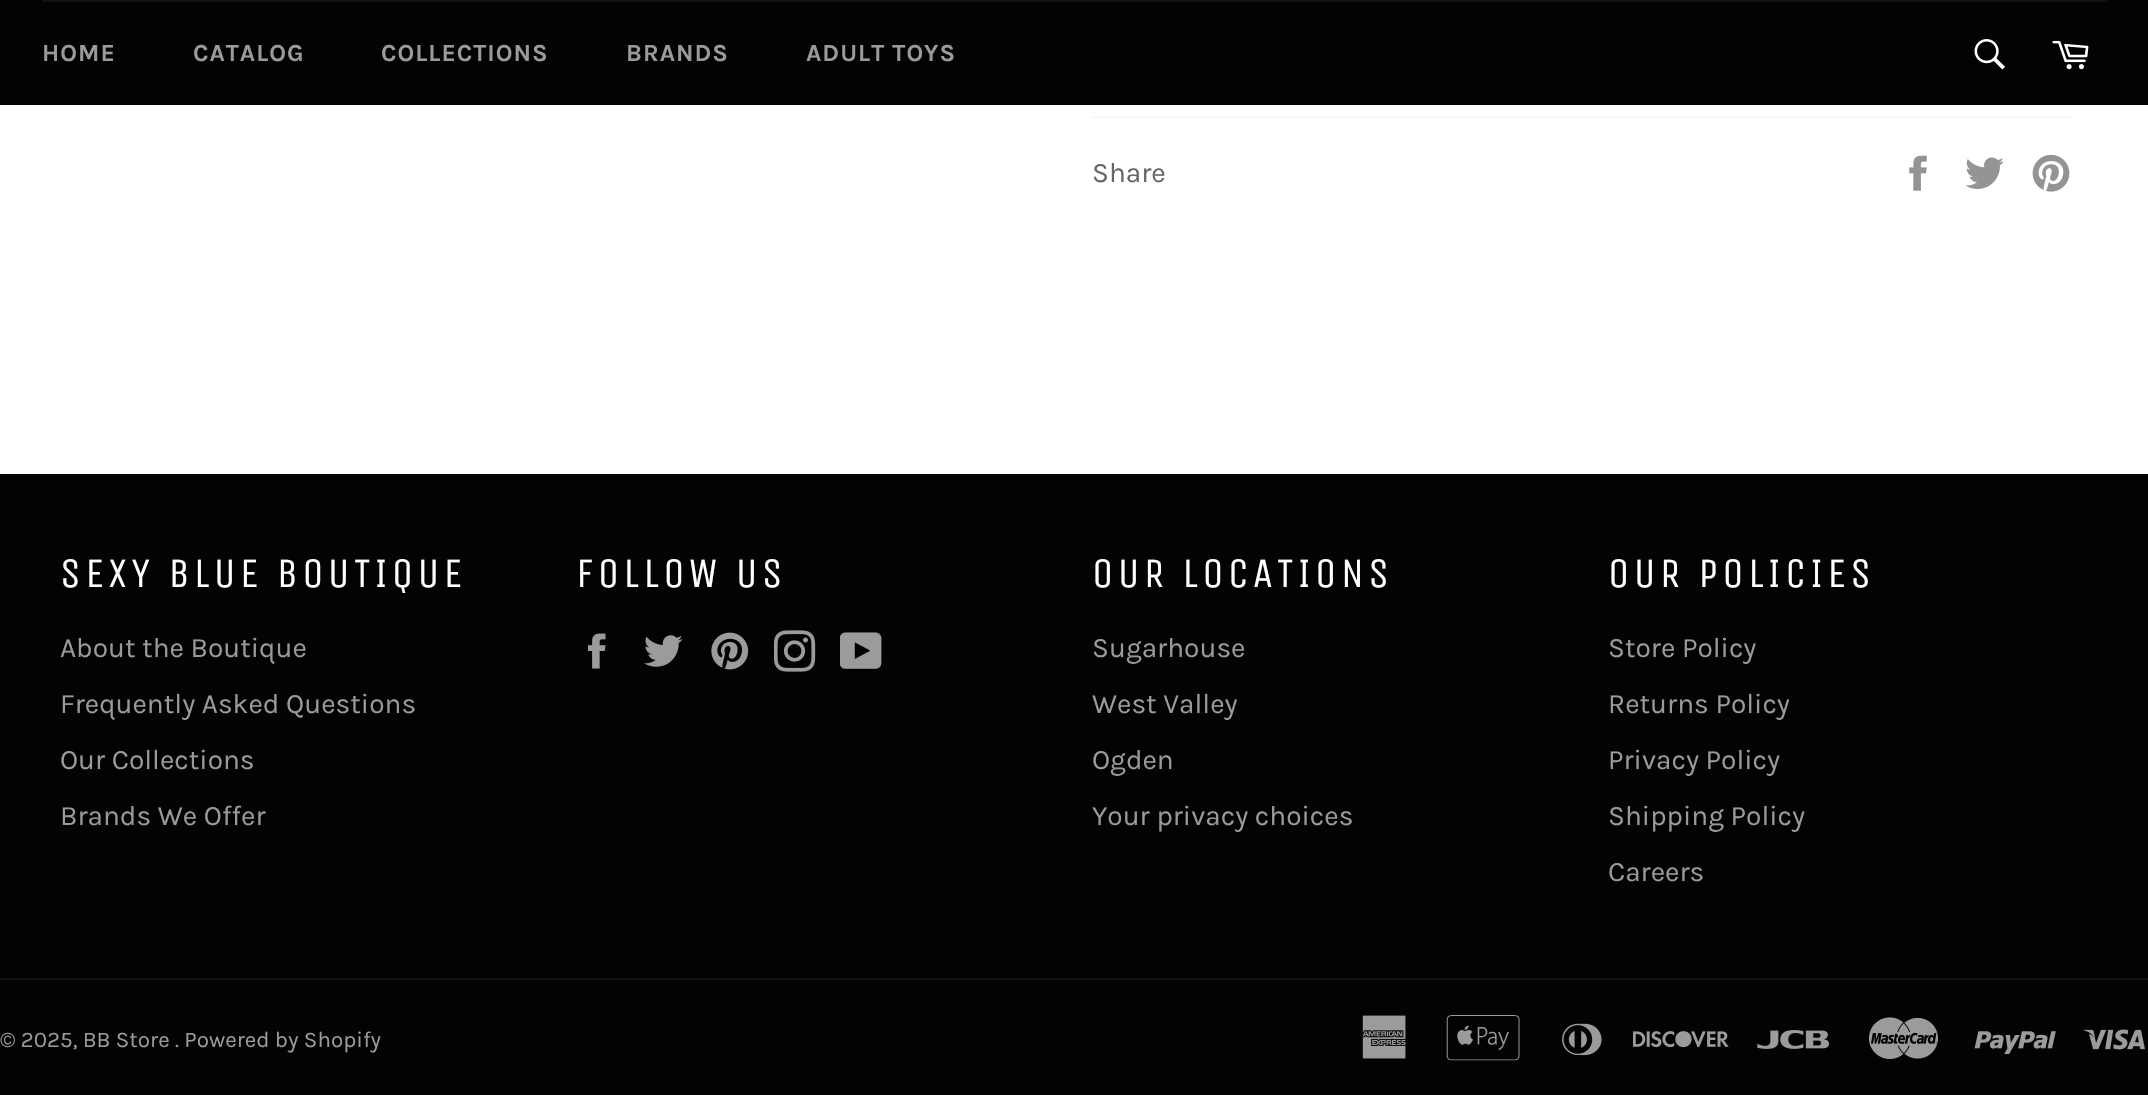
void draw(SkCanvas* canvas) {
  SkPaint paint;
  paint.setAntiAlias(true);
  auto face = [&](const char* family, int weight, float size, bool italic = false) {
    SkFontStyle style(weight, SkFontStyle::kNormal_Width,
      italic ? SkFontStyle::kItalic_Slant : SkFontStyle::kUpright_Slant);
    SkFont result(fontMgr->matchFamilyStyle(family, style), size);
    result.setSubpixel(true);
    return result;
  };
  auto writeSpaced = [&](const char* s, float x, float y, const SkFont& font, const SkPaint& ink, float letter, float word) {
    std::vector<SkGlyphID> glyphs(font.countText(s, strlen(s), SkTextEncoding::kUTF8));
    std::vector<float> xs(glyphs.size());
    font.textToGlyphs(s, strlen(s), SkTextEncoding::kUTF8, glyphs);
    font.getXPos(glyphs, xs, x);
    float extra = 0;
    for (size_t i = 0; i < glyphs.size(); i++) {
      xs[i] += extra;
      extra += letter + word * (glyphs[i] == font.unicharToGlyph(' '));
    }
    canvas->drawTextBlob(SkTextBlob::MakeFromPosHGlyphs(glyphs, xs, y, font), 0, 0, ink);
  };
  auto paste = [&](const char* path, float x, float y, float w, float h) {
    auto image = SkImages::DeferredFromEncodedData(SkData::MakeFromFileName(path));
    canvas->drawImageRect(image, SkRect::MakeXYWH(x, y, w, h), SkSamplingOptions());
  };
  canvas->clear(0xffffffff);
  paint.setColor(0xff030303);
  canvas->drawRect(SkRect::MakeXYWH(0, 0, 2148, 105), paint);
  paint.setColor(0xff101010);
  canvas->drawRect(SkRect::MakeXYWH(42, 0, 2065, 2), paint);
  paste("img/1.png", 1974, 39, 31, 31);
  paste("img/2.png", 2052, 40, 37, 30);
  paint.setColor(0xfff7f7f7);
  canvas->drawRect(SkRect::MakeXYWH(1092, 116, 980, 2), paint);
  paste("img/3.png", 1909, 155, 18, 36);
  paste("img/4.png", 1965, 157, 39, 32);
  paste("img/5.png", 2032, 154, 38, 38);
  paint.setColor(0xff030303);
  canvas->drawRect(SkRect::MakeXYWH(0, 474, 2148, 621), paint);
  paste("img/6.png", 588, 633, 18, 36);
  paste("img/7.png", 644, 635, 39, 32);
  paste("img/8.png", 711, 632, 38, 38);
  paste("img/9.png", 774, 630, 42, 42);
  paste("img/10.png", 840, 632, 42, 37);
  paint.setColor(0xff101010);
  canvas->drawRect(SkRect::MakeXYWH(0, 978, 2148, 2), paint);
  paste("img/11.png", 1362, 1015, 44, 44);
  paste("img/12.png", 1446, 1015, 74, 46);
  paste("img/13.png", 1562, 1023, 40, 33);
  paste("img/14.png", 1633, 1031, 96, 17);
  paste("img/15.png", 1757, 1030, 72, 19);
  paste("img/16.png", 1869, 1017, 69, 42);
  paste("img/17.png", 1974, 1031, 82, 23);
  paste("img/18.png", 2083, 1029, 62, 21);
  auto f0 = face("Karla", 700, 24.5f);
  paint.setColor(0xff9a9a9a);
  {
    const struct { const char* s; float x, y; } items[] = {
      {"HOME", 42, 61},
      {"CATALOG", 193, 61},
      {"COLLECTIONS", 381, 61},
      {"BRANDS", 626, 61},
      {"ADULT TOYS", 806, 61},
    };
    for (auto [s, x, y] : items) {
      writeSpaced(s, x, y, f0, paint, 1, 0);
    }
  }
  auto f1 = face("Karla", 400, 28);
  paint.setColor(0xff666666);
  canvas->drawString("Share", 1092, 182, f1, paint);
  auto f2 = face("Unica One", 400, 42);
  paint.setColor(0xffffffff);
  writeSpaced("SEXY BLUE BOUTIQUE", 60, 587, f2, paint, 4.25f, 0);
  paint.setColor(0xff9a9a9a);
  {
    const struct { const char* s; float x, y; } items[] = {
      {"About the Boutique", 60, 657},
      {"Frequently Asked Questions", 60, 713},
      {"Our Collections", 60, 769},
      {"Brands We Offer", 60, 825},
    };
    for (auto [s, x, y] : items) {
      canvas->drawString(s, x, y, f1, paint);
    }
  }
  paint.setColor(0xffffffff);
  writeSpaced("FOLLOW US", 576, 587, f2, paint, 4.25f, 0);
  writeSpaced("OUR LOCATIONS", 1092, 587, f2, paint, 4.25f, 0);
  paint.setColor(0xff9a9a9a);
  {
    const struct { const char* s; float x, y; } items[] = {
      {"Sugarhouse", 1092, 657},
      {"West Valley", 1092, 713},
      {"Ogden", 1092, 769},
      {"Your privacy choices", 1092, 825},
    };
    for (auto [s, x, y] : items) {
      canvas->drawString(s, x, y, f1, paint);
    }
  }
  paint.setColor(0xffffffff);
  writeSpaced("OUR POLICIES", 1608, 587, f2, paint, 4.25f, 0);
  paint.setColor(0xff9a9a9a);
  {
    const struct { const char* s; float x, y; } items[] = {
      {"Store Policy", 1608, 657},
      {"Returns Policy", 1608, 713},
      {"Privacy Policy", 1608, 769},
      {"Shipping Policy", 1608, 825},
      {"Careers", 1608, 881},
    };
    for (auto [s, x, y] : items) {
      canvas->drawString(s, x, y, f1, paint);
    }
  }
  auto f3 = face("Karla", 400, 22.4f);
  canvas->drawString("© 2025, BB Store . Powered by Shopify", 0, 1047, f3, paint);
}
